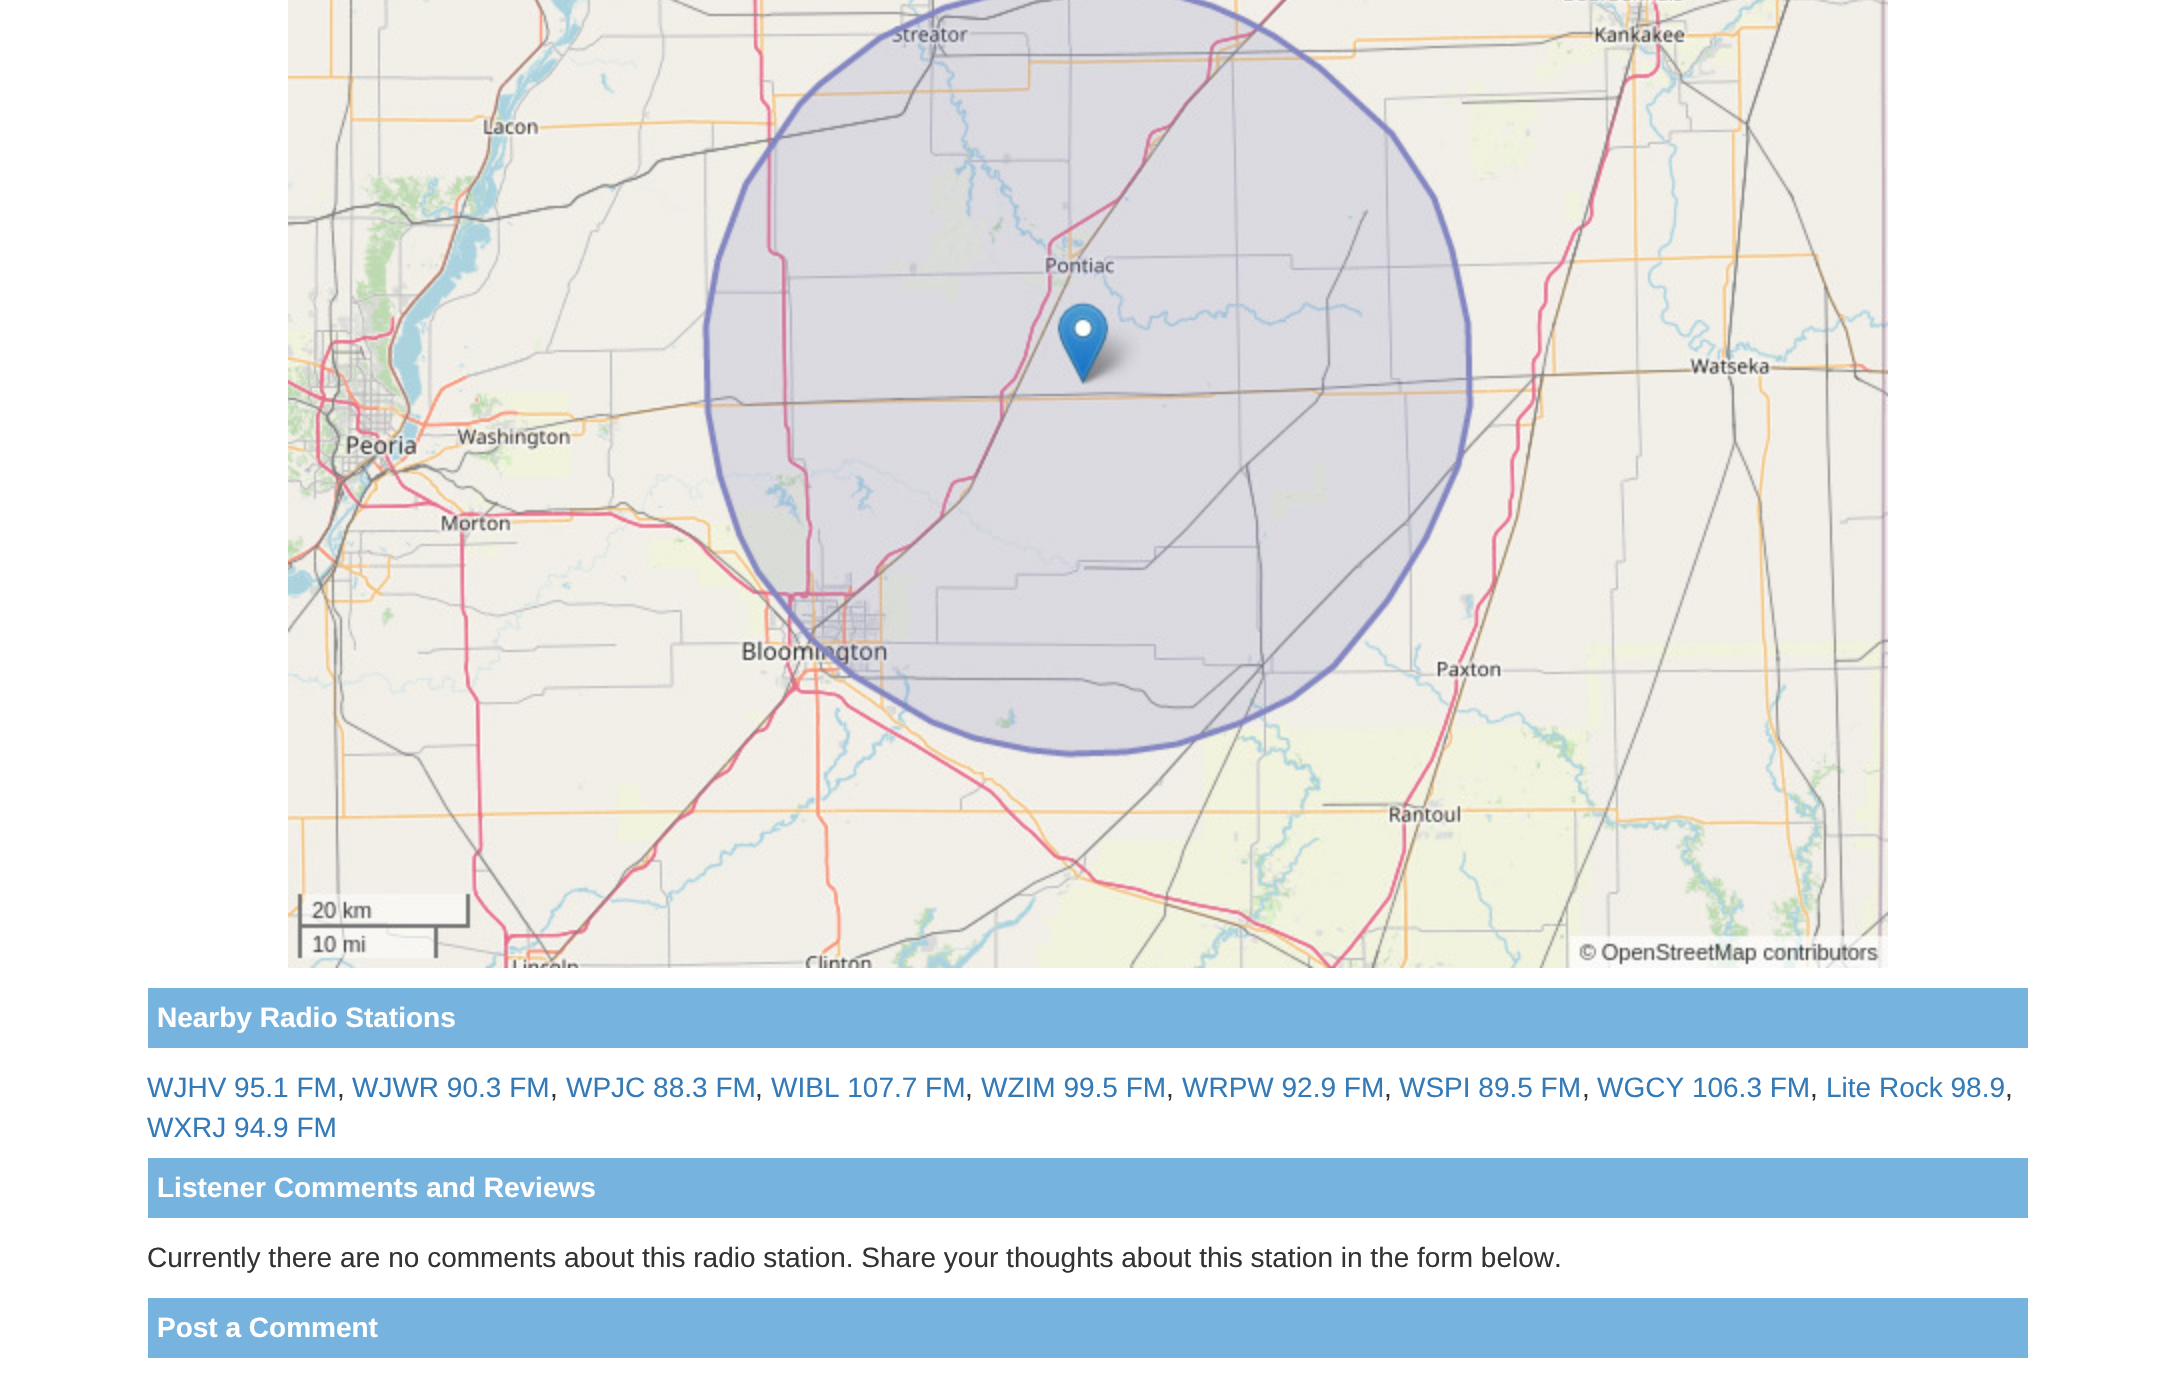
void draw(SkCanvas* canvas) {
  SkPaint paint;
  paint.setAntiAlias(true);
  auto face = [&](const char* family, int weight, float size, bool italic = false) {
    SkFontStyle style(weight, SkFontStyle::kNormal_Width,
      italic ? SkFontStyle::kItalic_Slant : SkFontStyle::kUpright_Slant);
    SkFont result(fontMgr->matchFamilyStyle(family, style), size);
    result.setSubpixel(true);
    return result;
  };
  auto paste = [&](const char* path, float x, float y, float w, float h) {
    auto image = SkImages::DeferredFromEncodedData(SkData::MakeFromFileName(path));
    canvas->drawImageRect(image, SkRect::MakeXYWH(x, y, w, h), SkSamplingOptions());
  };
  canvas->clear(0xffffffff);
  paste("img/1.png", 288, 0, 1600, 968);
  {
    const struct { float x, y, w, h; SkColor color; } items[] = {
      {148, 988, 1880, 60, 0xff76b3df},
      {148, 1158, 1880, 60, 0xff76b3df},
      {148, 1298, 1880, 60, 0xff76b3df},
    };
    for (auto [x, y, w, h, color] : items) {
      paint.setColor(color);
      canvas->drawRect(SkRect::MakeXYWH(x, y, w, h), paint);
    }
  }
  auto f0 = face("Liberation Sans", 700, 28);
  paint.setColor(0xffffffff);
  canvas->drawString("Nearby Radio Stations", 157, 1027, f0, paint);
  auto f1 = face("Liberation Sans", 400, 28);
  paint.setColor(0xff337ab7);
  canvas->drawString("WJHV 95.1 FM", 147, 1097, f1, paint);
  paint.setColor(0xff333333);
  canvas->drawString(",", 337, 1097, f1, paint);
  paint.setColor(0xff337ab7);
  canvas->drawString("WJWR 90.3 FM", 352, 1097, f1, paint);
  paint.setColor(0xff333333);
  canvas->drawString(",", 550, 1097, f1, paint);
  paint.setColor(0xff337ab7);
  canvas->drawString("WPJC 88.3 FM", 566, 1097, f1, paint);
  paint.setColor(0xff333333);
  canvas->drawString(",", 755, 1097, f1, paint);
  paint.setColor(0xff337ab7);
  canvas->drawString("WIBL 107.7 FM", 771, 1097, f1, paint);
  paint.setColor(0xff333333);
  canvas->drawString(",", 965, 1097, f1, paint);
  paint.setColor(0xff337ab7);
  canvas->drawString("WZIM 99.5 FM", 981, 1097, f1, paint);
  paint.setColor(0xff333333);
  canvas->drawString(",", 1166, 1097, f1, paint);
  paint.setColor(0xff337ab7);
  canvas->drawString("WRPW 92.9 FM", 1182, 1097, f1, paint);
  paint.setColor(0xff333333);
  canvas->drawString(",", 1384, 1097, f1, paint);
  paint.setColor(0xff337ab7);
  canvas->drawString("WSPI 89.5 FM", 1399, 1097, f1, paint);
  paint.setColor(0xff333333);
  canvas->drawString(",", 1582, 1097, f1, paint);
  paint.setColor(0xff337ab7);
  canvas->drawString("WGCY 106.3 FM", 1597, 1097, f1, paint);
  paint.setColor(0xff333333);
  canvas->drawString(",", 1810, 1097, f1, paint);
  paint.setColor(0xff337ab7);
  canvas->drawString("Lite Rock 98.9", 1826, 1097, f1, paint);
  paint.setColor(0xff333333);
  canvas->drawString(",", 2005, 1097, f1, paint);
  paint.setColor(0xff337ab7);
  canvas->drawString("WXRJ 94.9 FM", 147, 1137, f1, paint);
  paint.setColor(0xffffffff);
  canvas->drawString("Listener Comments and Reviews", 157, 1197, f0, paint);
  paint.setColor(0xff333333);
  canvas->drawString("Currently there are no comments about this radio station. Share your thoughts about this station in the form below.", 147, 1267, f1, paint);
  paint.setColor(0xffffffff);
  canvas->drawString("Post a Comment", 157, 1337, f0, paint);
}
